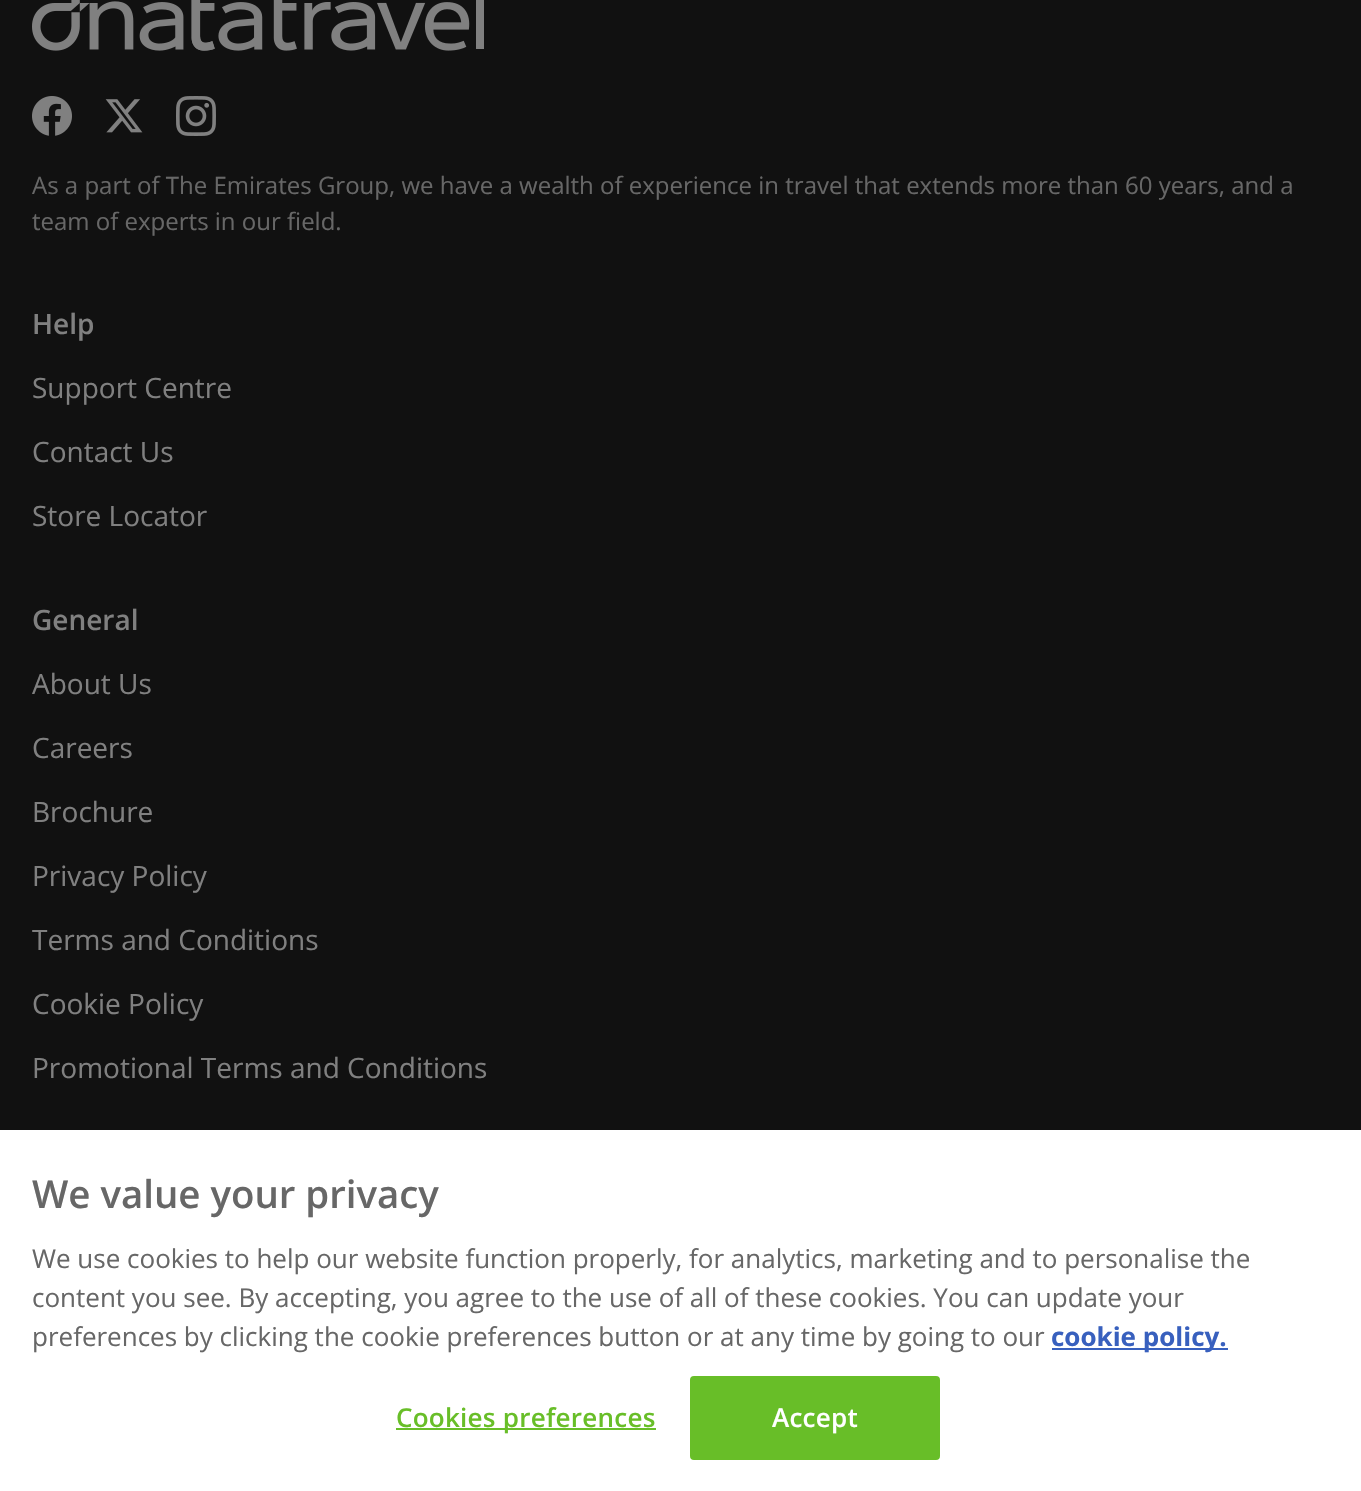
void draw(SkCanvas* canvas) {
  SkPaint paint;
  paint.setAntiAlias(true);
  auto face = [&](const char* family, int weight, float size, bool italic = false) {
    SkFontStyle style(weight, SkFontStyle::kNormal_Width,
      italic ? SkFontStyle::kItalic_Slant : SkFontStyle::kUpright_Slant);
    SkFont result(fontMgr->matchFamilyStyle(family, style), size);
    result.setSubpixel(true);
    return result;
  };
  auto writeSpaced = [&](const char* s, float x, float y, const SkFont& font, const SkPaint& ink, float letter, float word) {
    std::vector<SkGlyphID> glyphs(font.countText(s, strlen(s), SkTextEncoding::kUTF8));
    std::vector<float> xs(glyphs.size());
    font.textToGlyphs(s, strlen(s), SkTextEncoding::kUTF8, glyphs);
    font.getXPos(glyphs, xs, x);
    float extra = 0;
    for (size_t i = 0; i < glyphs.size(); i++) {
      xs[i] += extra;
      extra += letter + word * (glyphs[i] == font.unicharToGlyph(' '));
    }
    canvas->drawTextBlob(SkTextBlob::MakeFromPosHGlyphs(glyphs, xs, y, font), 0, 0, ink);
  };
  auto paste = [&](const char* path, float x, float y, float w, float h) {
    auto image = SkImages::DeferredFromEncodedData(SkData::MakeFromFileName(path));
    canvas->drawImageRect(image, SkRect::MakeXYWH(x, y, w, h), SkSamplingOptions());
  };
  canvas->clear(0xff111111);
  paste("img/1.png", 32, 0, 452, 51);
  paste("img/2.png", 32, 96, 40, 40);
  paste("img/3.png", 105, 99, 38, 34);
  paste("img/4.png", 176, 96, 40, 40);
  {
    const struct { float x, y, w, h; SkColor color; } items[] = {
      {0, 1130, 1361, 361, 0xffffffff},
      {1052, 1348, 176, 2, 0xff3860be},
      {396, 1428, 260, 2, 0xff68be28},
    };
    for (auto [x, y, w, h, color] : items) {
      paint.setColor(color);
      canvas->drawRect(SkRect::MakeXYWH(x, y, w, h), paint);
    }
  }
  canvas->drawRoundRect(SkRect::MakeXYWH(691, 1377, 248, 82), 3, 3, paint);
  paint.setStroke(true);
  paint.setStrokeWidth(2);
  canvas->drawRoundRect(SkRect::MakeXYWH(691, 1377, 248, 82), 3, 3, paint);
  auto f0 = face("Open Sans", 400, 24);
  paint.setStroke(false);
  paint.setColor(0xff676767);
  canvas->drawString("As a part of The Emirates Group, we have a wealth of experience in travel that extends more than 60 years, and a", 32, 194, f0, paint);
  canvas->drawString("team of experts in our field.", 32, 230, f0, paint);
  auto f1 = face("Open Sans", 600, 28);
  paint.setColor(0xff808080);
  canvas->drawString("Help", 32, 334, f1, paint);
  auto f2 = face("Open Sans", 400, 28);
  {
    const struct { const char* s; float x, y; } items[] = {
      {"Support Centre", 32, 398},
      {"Contact Us", 32, 462},
      {"Store Locator", 32, 526},
    };
    for (auto [s, x, y] : items) {
      canvas->drawString(s, x, y, f2, paint);
    }
  }
  canvas->drawString("General", 32, 630, f1, paint);
  {
    const struct { const char* s; float x, y; } items[] = {
      {"About Us", 32, 694},
      {"Careers", 32, 758},
      {"Brochure", 32, 822},
      {"Privacy Policy", 32, 886},
      {"Terms and Conditions", 32, 950},
      {"Cookie Policy", 32, 1014},
      {"Promotional Terms and Conditions", 32, 1078},
    };
    for (auto [s, x, y] : items) {
      canvas->drawString(s, x, y, f2, paint);
    }
  }
  auto f3 = face("Open Sans", 600, 38.4f);
  paint.setColor(0xff676767);
  canvas->drawString("We value your privacy", 32, 1208, f3, paint);
  auto f4 = face("Open Sans", 400, 26);
  {
    const struct { const char* s; float x, y; } items[] = {
      {"We use cookies to help our website function properly, for analytics, marketing and to personalise the", 32, 1268},
      {"content you see. By accepting, you agree to the use of all of these cookies. You can update your", 32, 1307},
      {"preferences by clicking the cookie preferences button or at any time by going to our", 32, 1346},
    };
    for (auto [s, x, y] : items) {
      canvas->drawString(s, x, y, f4, paint);
    }
  }
  auto f5 = face("Open Sans", 700, 26);
  paint.setColor(0xff3860be);
  canvas->drawString("cookie policy.", 1051, 1346, f5, paint);
  auto f6 = face("Open Sans", 600, 26);
  paint.setColor(0xff68be28);
  writeSpaced("Cookies preferences", 396, 1427, f6, paint, 0.25f, 0);
  paint.setColor(0xffffffff);
  writeSpaced("Accept", 772, 1427, f6, paint, 0.25f, 0);
}
